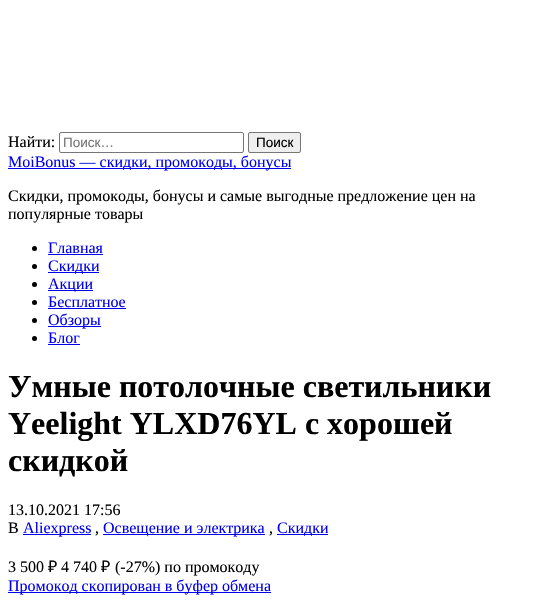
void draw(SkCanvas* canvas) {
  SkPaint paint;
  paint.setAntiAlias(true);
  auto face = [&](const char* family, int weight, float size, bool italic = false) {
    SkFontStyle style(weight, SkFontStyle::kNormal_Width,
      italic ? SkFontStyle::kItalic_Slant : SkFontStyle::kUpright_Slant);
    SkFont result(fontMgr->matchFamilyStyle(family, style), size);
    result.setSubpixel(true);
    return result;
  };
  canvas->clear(0xffffffff);
  paint.setStroke(true);
  paint.setStrokeWidth(1);
  paint.setColor(0xff767676);
  canvas->drawRoundRect(SkRect::MakeXYWH(59.5f, 132.5f, 184, 20), 1.5f, 1.5f, paint);
  paint.setStroke(false);
  paint.setColor(0xffefefef);
  canvas->drawRoundRect(SkRect::MakeXYWH(248.5f, 132.5f, 52, 20), 1.5f, 1.5f, paint);
  paint.setStroke(true);
  paint.setColor(0xff767676);
  canvas->drawRoundRect(SkRect::MakeXYWH(248.5f, 132.5f, 52, 20), 1.5f, 1.5f, paint);
  paint.setStroke(false);
  paint.setColor(0xff0000ee);
  canvas->drawRect(SkRect::MakeXYWH(8, 168, 283, 1), paint);
  paint.setColor(0xff000000);
  canvas->drawCircle(34.5f, 248.5f, 2.5f, paint);
  paint.setColor(0xff0000ee);
  canvas->drawRect(SkRect::MakeXYWH(48, 254, 55, 1), paint);
  paint.setColor(0xff000000);
  canvas->drawCircle(34.5f, 266.5f, 2.5f, paint);
  paint.setColor(0xff0000ee);
  canvas->drawRect(SkRect::MakeXYWH(48, 272, 51, 1), paint);
  paint.setColor(0xff000000);
  canvas->drawCircle(34.5f, 284.5f, 2.5f, paint);
  paint.setColor(0xff0000ee);
  canvas->drawRect(SkRect::MakeXYWH(48, 290, 45, 1), paint);
  paint.setColor(0xff000000);
  canvas->drawCircle(34.5f, 302.5f, 2.5f, paint);
  paint.setColor(0xff0000ee);
  canvas->drawRect(SkRect::MakeXYWH(48, 308, 78, 1), paint);
  paint.setColor(0xff000000);
  canvas->drawCircle(34.5f, 320.5f, 2.5f, paint);
  paint.setColor(0xff0000ee);
  canvas->drawRect(SkRect::MakeXYWH(48, 326, 53, 1), paint);
  paint.setColor(0xff000000);
  canvas->drawCircle(34.5f, 338.5f, 2.5f, paint);
  {
    const struct { float x, y, w, h; SkColor color; } items[] = {
      {48, 344, 32, 1, 0xff0000ee},
      {23, 534, 68, 1, 0xff0000ee},
      {103, 534, 162, 1, 0xff0000ee},
      {277, 534, 51, 1, 0xff0000ee},
      {8, 592, 263, 1, 0xff0000ee},
    };
    for (auto [x, y, w, h, color] : items) {
      paint.setColor(color);
      canvas->drawRect(SkRect::MakeXYWH(x, y, w, h), paint);
    }
  }
  auto f0 = face("Liberation Serif", 400, 16);
  paint.setColor(0xff000000);
  canvas->drawString("Найти:", 8, 147, f0, paint);
  auto f1 = face("Liberation Sans", 400, 13.5f);
  paint.setColor(0xff757575);
  canvas->drawString("Поиск…", 63, 147, f1, paint);
  paint.setColor(0xff000000);
  canvas->drawString("Поиск", 256, 147, f1, paint);
  paint.setColor(0xff0000ee);
  canvas->drawString("MoiBonus — скидки, промокоды, бонусы", 8, 167, f0, paint);
  paint.setColor(0xff000000);
  canvas->drawString("Скидки, промокоды, бонусы и самые выгодные предложение цен на", 8, 201, f0, paint);
  canvas->drawString("популярные товары", 8, 219, f0, paint);
  paint.setColor(0xff0000ee);
  {
    const struct { const char* s; float x, y; } items[] = {
      {"Главная", 48, 253},
      {"Скидки", 48, 271},
      {"Акции", 48, 289},
      {"Бесплатное", 48, 307},
      {"Обзоры", 48, 325},
      {"Блог", 48, 343},
    };
    for (auto [s, x, y] : items) {
      canvas->drawString(s, x, y, f0, paint);
    }
  }
  auto f2 = face("Liberation Serif", 700, 32);
  paint.setColor(0xff000000);
  {
    const struct { const char* s; float x, y; } items[] = {
      {"Умные потолочные светильники", 8, 397},
      {"Yeelight YLXD76YL с хорошей", 8, 434},
      {"скидкой", 8, 471},
    };
    for (auto [s, x, y] : items) {
      canvas->drawString(s, x, y, f2, paint);
    }
  }
  canvas->drawString("13.10.2021 17:56", 8, 515, f0, paint);
  canvas->drawString("В", 8, 533, f0, paint);
  paint.setColor(0xff0000ee);
  canvas->drawString("Aliexpress", 23, 533, f0, paint);
  paint.setColor(0xff000000);
  canvas->drawString(",", 95, 533, f0, paint);
  paint.setColor(0xff0000ee);
  canvas->drawString("Освещение и электрика", 103, 533, f0, paint);
  paint.setColor(0xff000000);
  canvas->drawString(",", 269, 533, f0, paint);
  paint.setColor(0xff0000ee);
  canvas->drawString("Скидки", 277, 533, f0, paint);
  paint.setColor(0xff000000);
  canvas->drawString("3 500", 8, 572, f0, paint);
  auto f3 = face("Noto Sans", 400, 16);
  canvas->drawString("₽", 48, 572, f3, paint);
  canvas->drawString("4 740", 61, 572, f0, paint);
  canvas->drawString("₽", 101, 572, f3, paint);
  canvas->drawString("(-27%) по промокоду", 115, 572, f0, paint);
  paint.setColor(0xff0000ee);
  canvas->drawString("Промокод скопирован в буфер обмена", 8, 591, f0, paint);
}
